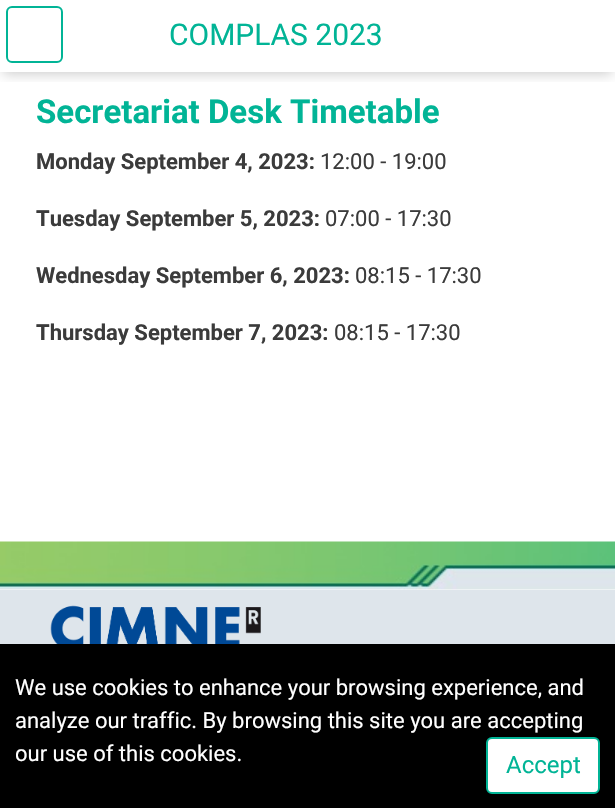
void draw(SkCanvas* canvas) {
  SkPaint paint;
  paint.setAntiAlias(true);
  auto face = [&](const char* family, int weight, float size, bool italic = false) {
    SkFontStyle style(weight, SkFontStyle::kNormal_Width,
      italic ? SkFontStyle::kItalic_Slant : SkFontStyle::kUpright_Slant);
    SkFont result(fontMgr->matchFamilyStyle(family, style), size);
    result.setSubpixel(true);
    return result;
  };
  auto paste = [&](const char* path, float x, float y, float w, float h) {
    auto image = SkImages::DeferredFromEncodedData(SkData::MakeFromFileName(path));
    canvas->drawImageRect(image, SkRect::MakeXYWH(x, y, w, h), SkSamplingOptions());
  };
  canvas->clear(0xffffffff);
  canvas->save();
  canvas->clipRect(SkRect::MakeXYWH(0, 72, 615, 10));
  paint.setColor(0x33000000);
  paint.setMaskFilter(SkMaskFilter::MakeBlur(kNormal_SkBlurStyle, 6));
  canvas->drawRect(SkRect::MakeXYWH(3, 8, 609, 66), paint);
  paint.setMaskFilter(nullptr);
  canvas->restore();
  paint.setStroke(true);
  paint.setStrokeWidth(2);
  paint.setColor(0xff01b496);
  canvas->drawRoundRect(SkRect::MakeXYWH(7, 7, 55, 55), 5, 5, paint);
  paste("img/1.png", 0, 541, 615, 49);
  paint.setStroke(false);
  paint.setColor(0xffdee5eb);
  canvas->drawRect(SkRect::MakeXYWH(0, 590, 615, 54), paint);
  paste("img/2.png", 50, 605, 211, 39);
  paint.setColor(0xff000000);
  canvas->drawRect(SkRect::MakeXYWH(0, 644, 615, 164), paint);
  paint.setColor(0xffffffff);
  canvas->drawRoundRect(SkRect::MakeXYWH(487, 738, 112, 55), 5, 5, paint);
  paint.setStroke(true);
  paint.setColor(0xff01b496);
  canvas->drawRoundRect(SkRect::MakeXYWH(487, 738, 112, 55), 5, 5, paint);
  auto f0 = face("Roboto", 400, 30);
  paint.setStroke(false);
  canvas->drawString("COMPLAS 2023", 169, 45, f0, paint);
  auto f1 = face("Roboto", 700, 33);
  canvas->drawString("Secretariat Desk Timetable", 36, 123, f1, paint);
  auto f2 = face("Roboto", 700, 22);
  paint.setColor(0xff3b3b3b);
  canvas->drawString("Monday September 4, 2023:", 36, 169, f2, paint);
  auto f3 = face("Roboto", 400, 22);
  canvas->drawString("12:00 - 19:00", 320, 169, f3, paint);
  canvas->drawString("Tuesday September 5, 2023:", 36, 226, f2, paint);
  canvas->drawString("07:00 - 17:30", 325, 226, f3, paint);
  canvas->drawString("Wednesday September 6, 2023:", 36, 283, f2, paint);
  canvas->drawString("08:15 - 17:30", 355, 283, f3, paint);
  canvas->drawString("Thursday September 7, 2023:", 36, 340, f2, paint);
  canvas->drawString("08:15 - 17:30", 334, 340, f3, paint);
  paint.setColor(0xffffffff);
  {
    const struct { const char* s; float x, y; } items[] = {
      {"We use cookies to enhance your browsing experience, and", 15, 695},
      {"analyze our traffic. By browsing this site you are accepting", 15, 728},
      {"our use of this cookies.", 15, 761},
    };
    for (auto [s, x, y] : items) {
      canvas->drawString(s, x, y, f3, paint);
    }
  }
  auto f4 = face("Roboto", 400, 24);
  paint.setColor(0xff01b496);
  canvas->drawString("Accept", 506, 773, f4, paint);
}
